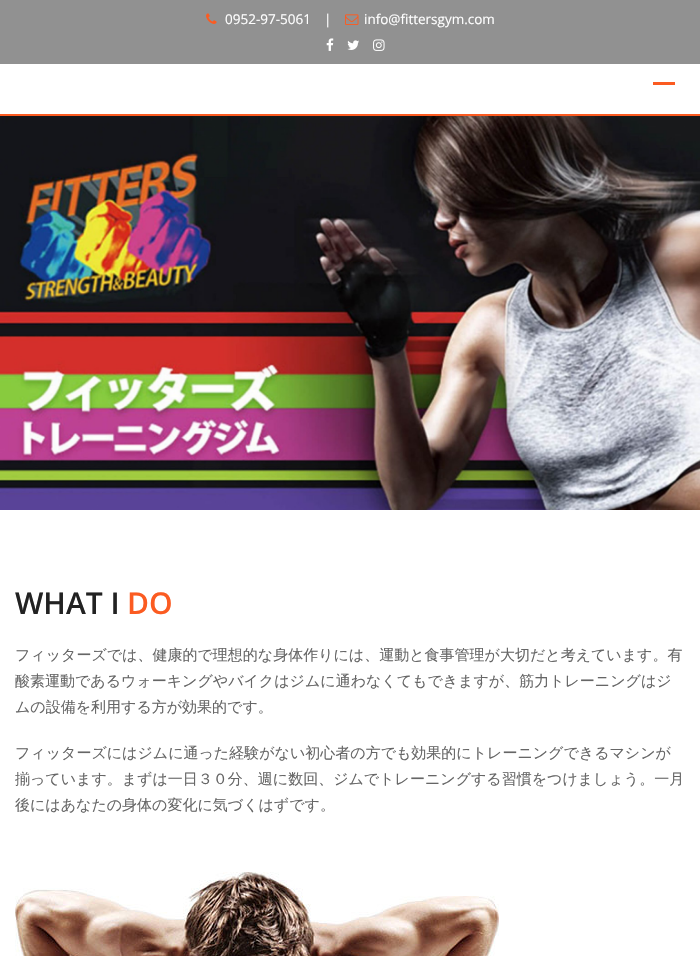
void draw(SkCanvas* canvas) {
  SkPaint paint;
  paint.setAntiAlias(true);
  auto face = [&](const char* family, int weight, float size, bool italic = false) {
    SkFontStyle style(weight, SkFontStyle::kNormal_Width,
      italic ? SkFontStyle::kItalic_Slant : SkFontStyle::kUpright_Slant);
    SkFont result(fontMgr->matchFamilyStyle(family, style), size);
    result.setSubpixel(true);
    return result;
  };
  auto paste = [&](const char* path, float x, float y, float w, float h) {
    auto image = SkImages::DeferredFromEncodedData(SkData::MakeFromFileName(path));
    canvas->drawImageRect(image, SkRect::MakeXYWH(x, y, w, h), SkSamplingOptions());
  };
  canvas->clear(0xffffffff);
  paint.setColor(0xff919191);
  canvas->drawRect(SkRect::MakeXYWH(0, 0, 700, 64), paint);
  paste("img/1.png", 206, 13, 11, 11);
  paste("img/2.png", 345, 14, 14, 11);
  paste("img/3.png", 326, 38, 8, 13);
  paste("img/4.png", 347, 40, 12, 10);
  paste("img/5.png", 373, 39, 12, 12);
  paint.setColor(0xfffb5b21);
  canvas->drawRect(SkRect::MakeXYWH(0, 114, 700, 2), paint);
  canvas->drawRect(SkRect::MakeXYWH(653, 82, 22, 3), paint);
  paste("img/6.png", 0, 116, 700, 394);
  paste("img/7.png", 15, 872, 484, 84);
  auto f0 = face("Open Sans", 400, 13.5f);
  paint.setColor(0xffffffff);
  {
    const struct { const char* s; float x, y; } items[] = {
      {"0952-97-5061", 225, 24},
      {"|", 324, 24},
      {"info@fittersgym.com", 364, 24},
    };
    for (auto [s, x, y] : items) {
      canvas->drawString(s, x, y, f0, paint);
    }
  }
  auto f1 = face("Open Sans", 600, 30);
  paint.setColor(0xff222222);
  canvas->drawString("WHAT I", 15, 614, f1, paint);
  paint.setColor(0xfffb5b21);
  canvas->drawString("DO", 127, 614, f1, paint);
  auto f2 = face("WenQuanYi Zen Hei", 500, 15);
  paint.setColor(0xff666666);
  {
    const struct { const char* s; float x, y; } items[] = {
      {"フィッターズでは、健康的で理想的な身体作りには、運動と食事管理が大切だと考えています。有", 15, 660},
      {"酸素運動であるウォーキングやバイクはジムに通わなくてもできますが、筋力トレーニングはジ", 15, 686},
      {"ムの設備を利用する方が効果的です。", 15, 712},
      {"フィッターズにはジムに通った経験がない初心者の方でも効果的にトレーニングできるマシンが", 15, 758},
      {"揃っています。まずは一日３０分、週に数回、ジムでトレーニングする習慣をつけましょう。一月", 15, 784},
      {"後にはあなたの身体の変化に気づくはずです。", 15, 810},
    };
    for (auto [s, x, y] : items) {
      canvas->drawString(s, x, y, f2, paint);
    }
  }
}
